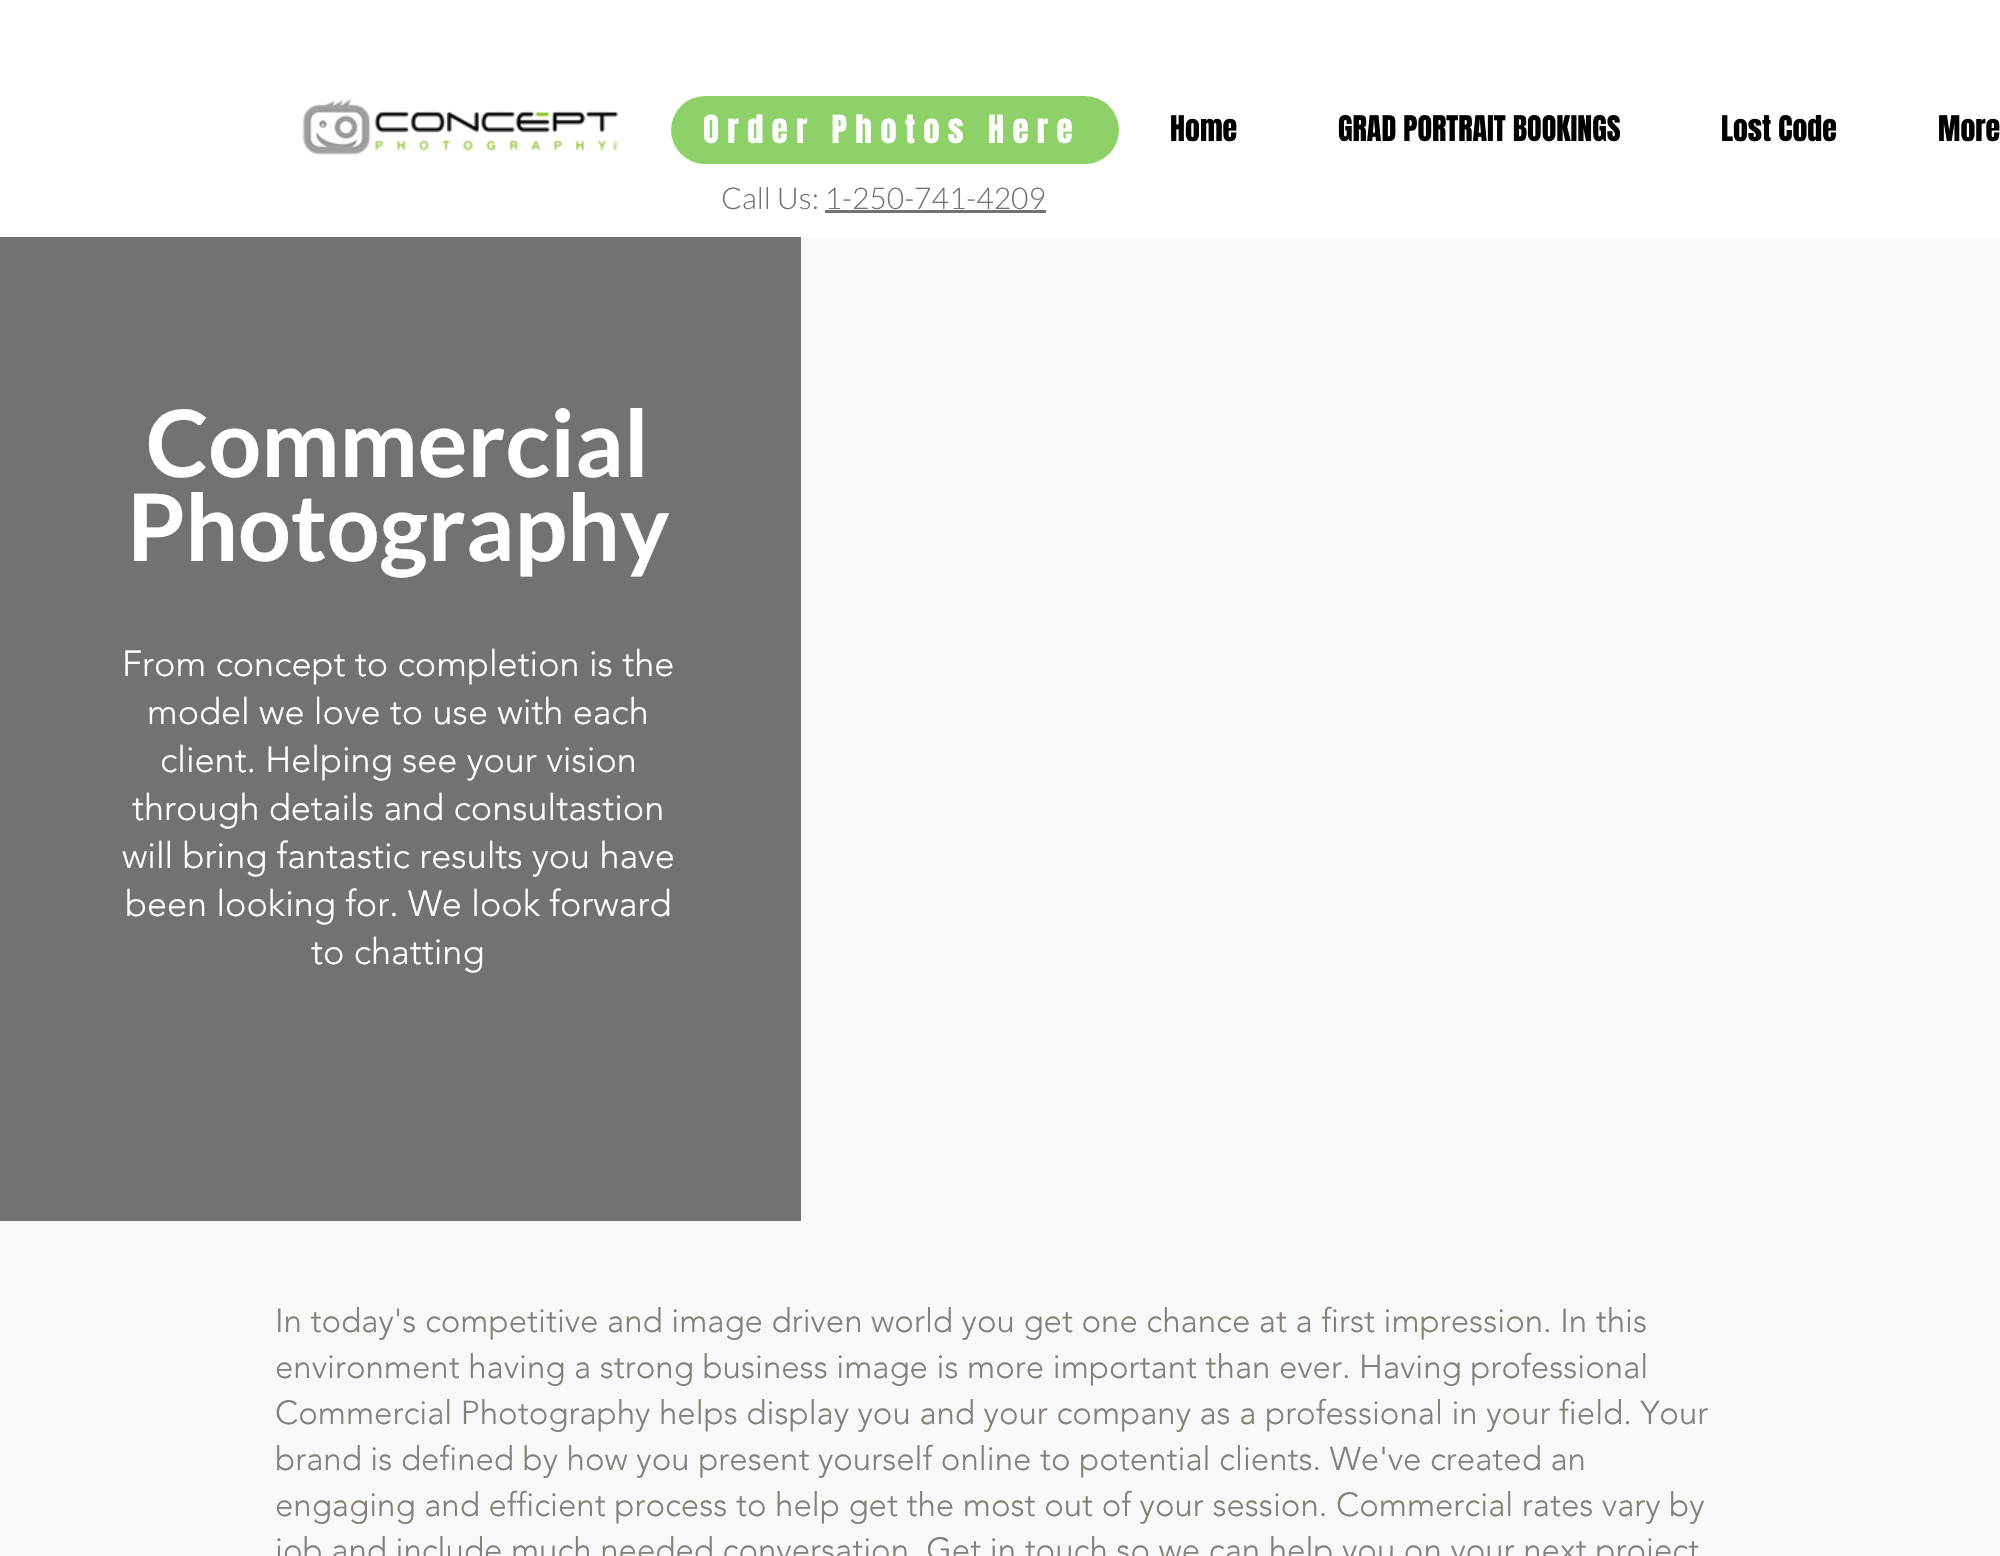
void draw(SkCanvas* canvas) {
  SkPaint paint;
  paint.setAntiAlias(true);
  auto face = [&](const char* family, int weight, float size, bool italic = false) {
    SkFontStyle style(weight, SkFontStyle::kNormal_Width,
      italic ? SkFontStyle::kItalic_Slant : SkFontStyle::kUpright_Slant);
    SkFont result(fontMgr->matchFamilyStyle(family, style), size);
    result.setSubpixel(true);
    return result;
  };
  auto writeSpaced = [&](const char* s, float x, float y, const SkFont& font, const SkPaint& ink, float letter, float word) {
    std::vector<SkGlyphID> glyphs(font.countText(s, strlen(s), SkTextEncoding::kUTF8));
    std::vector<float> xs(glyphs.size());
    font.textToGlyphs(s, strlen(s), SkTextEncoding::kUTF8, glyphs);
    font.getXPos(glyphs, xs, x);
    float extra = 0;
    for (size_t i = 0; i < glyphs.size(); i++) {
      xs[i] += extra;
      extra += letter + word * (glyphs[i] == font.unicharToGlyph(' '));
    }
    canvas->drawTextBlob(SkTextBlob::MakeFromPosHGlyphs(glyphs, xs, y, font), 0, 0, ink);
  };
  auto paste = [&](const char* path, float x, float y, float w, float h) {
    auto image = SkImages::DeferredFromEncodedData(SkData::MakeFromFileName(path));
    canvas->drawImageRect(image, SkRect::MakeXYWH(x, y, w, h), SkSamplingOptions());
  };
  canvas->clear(0xfff8f8f8);
  paint.setColor(0xffffffff);
  canvas->drawRect(SkRect::MakeXYWH(0, 0, 2000, 237), paint);
  paste("img/1.png", 302, 99, 317, 56);
  paint.setColor(0xff8fd169);
  canvas->drawRoundRect(SkRect::MakeXYWH(671, 96, 448, 68), 34, 34, paint);
  paint.setColor(0xff727272);
  canvas->drawRect(SkRect::MakeXYWH(825, 210, 221, 3), paint);
  canvas->drawRect(SkRect::MakeXYWH(0, 237, 801, 984), paint);
  canvas->save();
  canvas->clipRect(SkRect::MakeXYWH(704, 107, 376, 48));
  auto f0 = face("Anton", 400, 33);
  paint.setColor(0xffffffff);
  writeSpaced("Order Photos Here", 703, 143, f0, paint, 8.25f, 0);
  canvas->restore();
  auto f1 = face("Anton", 400, 30);
  paint.setColor(0xff000000);
  {
    const struct { const char* s; float x, y; } items[] = {
      {"Home", 1170, 141},
      {"GRAD PORTRAIT BOOKINGS", 1338, 141},
      {"Lost Code", 1721, 141},
      {"More", 1938, 141},
    };
    for (auto [s, x, y] : items) {
      canvas->drawString(s, x, y, f1, paint);
    }
  }
  auto f2 = face("Lato", 300, 30);
  paint.setColor(0xff727272);
  canvas->drawString("Call Us: 1-250-741-4209", 721, 209, f2, paint);
  auto f3 = face("Lato", 700, 93);
  paint.setColor(0xffffffff);
  canvas->drawString("Commercial", 146, 477, f3, paint);
  canvas->drawString("Photography", 127, 561, f3, paint);
  auto f4 = face("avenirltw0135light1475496", 300, 36);
  {
    const struct { const char* s; float x, y; } items[] = {
      {"From concept to completion is the", 122, 676},
      {"model we love to use with each", 147, 724},
      {"client. Helping see your vision", 160, 772},
      {"through details and consultastion", 132, 820},
      {"will bring fantastic results you have", 122, 868},
      {"been looking for. We look forward", 125, 916},
      {"to chatting", 311, 964},
    };
    for (auto [s, x, y] : items) {
      canvas->drawString(s, x, y, f4, paint);
    }
  }
  auto f5 = face("avenirltw0135light1475496", 300, 33);
  paint.setColor(0xff848079);
  {
    const struct { const char* s; float x, y; } items[] = {
      {"In today's competitive and image driven world you get one chance at a first impression. In this", 275, 1332},
      {"environment having a strong business image is more important than ever. Having professional", 275, 1378},
      {"Commercial Photography helps display you and your company as a professional in your field. Your", 275, 1424},
      {"brand is defined by how you present yourself online to potential clients. We've created an", 275, 1470},
      {"engaging and efficient process to help get the most out of your session. Commercial rates vary by", 275, 1516},
      {"job and include much needed conversation, Get in touch so we can help you on your next project", 275, 1561},
    };
    for (auto [s, x, y] : items) {
      canvas->drawString(s, x, y, f5, paint);
    }
  }
}
